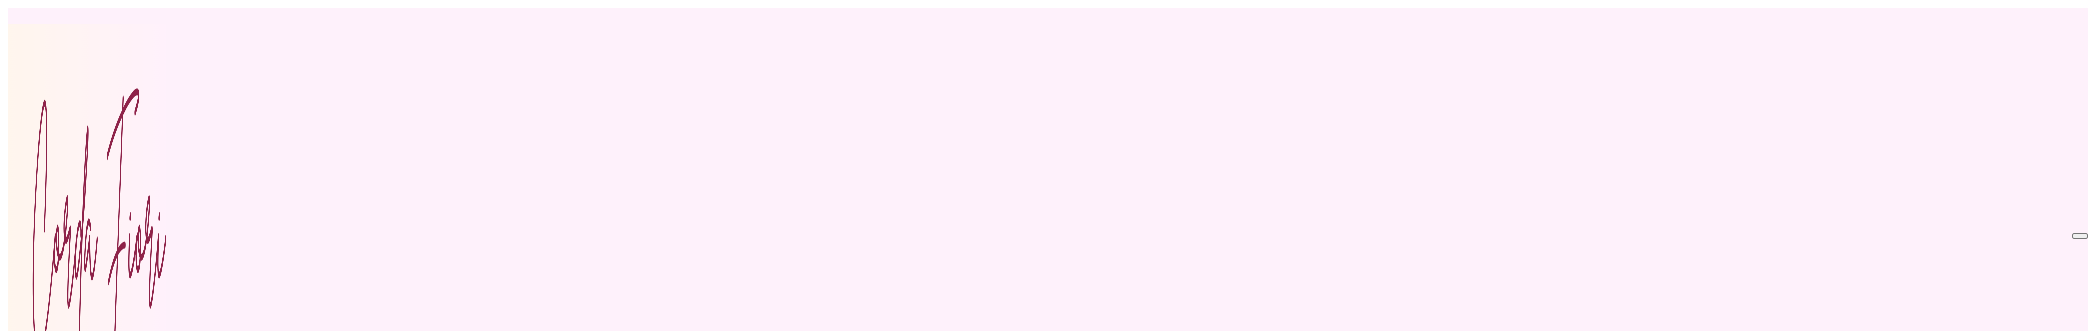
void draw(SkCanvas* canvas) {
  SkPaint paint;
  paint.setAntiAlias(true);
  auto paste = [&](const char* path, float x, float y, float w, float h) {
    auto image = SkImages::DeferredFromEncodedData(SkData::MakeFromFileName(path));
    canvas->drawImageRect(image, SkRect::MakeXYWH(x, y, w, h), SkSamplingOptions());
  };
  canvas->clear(0xffffffff);
  paint.setColor(0xfffef1fb);
  canvas->drawRect(SkRect::MakeXYWH(8, 8, 2080, 323), paint);
  paste("img/1.png", 8, 24, 158, 307);
  paint.setColor(0xffefefef);
  canvas->drawRoundRect(SkRect::MakeXYWH(2072.5f, 233.5f, 15, 5), 1.5f, 1.5f, paint);
  paint.setStroke(true);
  paint.setStrokeWidth(1);
  paint.setColor(0xff767676);
  canvas->drawRoundRect(SkRect::MakeXYWH(2072.5f, 233.5f, 15, 5), 1.5f, 1.5f, paint);
}
